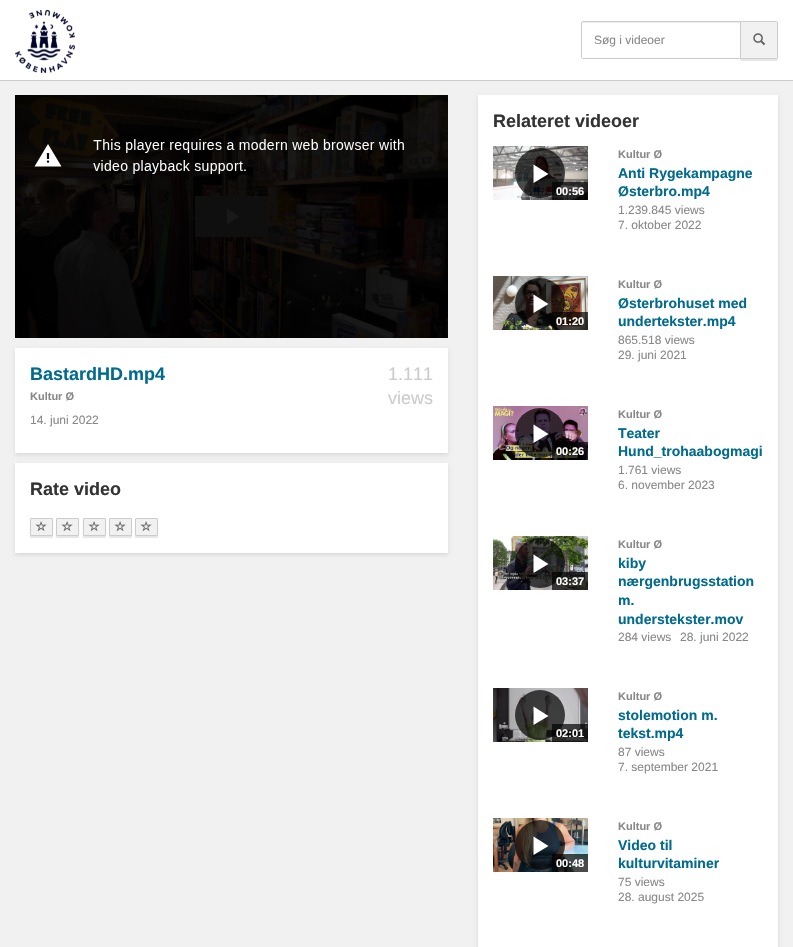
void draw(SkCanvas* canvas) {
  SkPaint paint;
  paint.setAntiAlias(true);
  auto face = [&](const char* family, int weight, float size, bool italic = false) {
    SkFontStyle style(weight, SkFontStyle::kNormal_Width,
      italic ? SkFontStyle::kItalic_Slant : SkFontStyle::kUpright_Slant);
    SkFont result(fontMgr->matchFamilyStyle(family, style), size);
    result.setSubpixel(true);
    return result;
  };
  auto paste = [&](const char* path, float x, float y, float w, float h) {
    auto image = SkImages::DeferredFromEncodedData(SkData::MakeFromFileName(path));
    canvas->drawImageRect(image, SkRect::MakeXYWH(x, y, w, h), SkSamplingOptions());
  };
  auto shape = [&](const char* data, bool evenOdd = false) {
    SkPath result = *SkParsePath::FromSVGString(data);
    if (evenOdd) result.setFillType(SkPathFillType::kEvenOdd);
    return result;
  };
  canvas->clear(0xfff1f1f1);
  paint.setColor(0xffffffff);
  canvas->drawRect(SkRect::MakeXYWH(0, 0, 793, 80), paint);
  paint.setColor(0xffcccccc);
  canvas->drawRect(SkRect::MakeXYWH(0, 80, 793, 1), paint);
  paste("img/1.png", 15, 10, 60, 63);
  paint.setColor(0x1a000000);
  paint.setMaskFilter(SkMaskFilter::MakeBlur(kNormal_SkBlurStyle, 0.5f));
  canvas->drawRoundRect(SkRect::MakeXYWH(740, 23, 38, 38), 2, 2, paint);
  paint.setMaskFilter(nullptr);
  paint.setColor(0xfff1f1f1);
  canvas->drawPath(shape("M740.5 21.5H776C777 21.5 777.5 22 777.5 23V57C777.5 58 777 58.5 776 58.5H740.5Z"), paint);
  paint.setStroke(true);
  paint.setStrokeWidth(1);
  paint.setColor(0xffcccccc);
  canvas->drawPath(shape("M740.5 21.5H776C777 21.5 777.5 22 777.5 23V57C777.5 58 777 58.5 776 58.5H740.5Z"), paint);
  paint.setStroke(false);
  paint.setColor(0xffffffff);
  canvas->drawPath(shape("M583 21H741V59H583C582 59 581 58 581 57V23C581 22 582 21 583 21Z"), paint);
  paint.setColor(0xffececec);
  canvas->drawPath(shape("M583 23H740V22H582V24C582 23 582 23 583 23Z"), paint);
  paint.setStroke(true);
  paint.setColor(0xffcccccc);
  canvas->drawPath(shape("M583 21.5H740.5V58.5H583C582 58.5 581.5 58 581.5 57V23C581.5 22 582 21.5 583 21.5Z"), paint);
  paste("img/2.png", 753, 33, 13, 13);
  paste("img/3.png", 15, 95, 433, 243);
  paint.setStroke(false);
  paint.setColor(0x1a000000);
  paint.setMaskFilter(SkMaskFilter::MakeBlur(kNormal_SkBlurStyle, 2));
  canvas->drawRect(SkRect::MakeXYWH(15, 350, 433, 105), paint);
  paint.setMaskFilter(nullptr);
  paint.setColor(0xffffffff);
  canvas->drawRect(SkRect::MakeXYWH(15, 348, 433, 105), paint);
  paint.setColor(0x1a000000);
  paint.setMaskFilter(SkMaskFilter::MakeBlur(kNormal_SkBlurStyle, 2));
  canvas->drawRect(SkRect::MakeXYWH(15, 465, 433, 90), paint);
  paint.setMaskFilter(nullptr);
  paint.setColor(0xffffffff);
  canvas->drawRect(SkRect::MakeXYWH(15, 463, 433, 90), paint);
  paint.setColor(0x1a000000);
  paint.setMaskFilter(SkMaskFilter::MakeBlur(kNormal_SkBlurStyle, 0.5f));
  canvas->drawRoundRect(SkRect::MakeXYWH(30, 520, 23, 18), 1, 1, paint);
  paint.setMaskFilter(nullptr);
  paint.setColor(0xfff1f1f1);
  canvas->drawRoundRect(SkRect::MakeXYWH(30.5f, 518.5f, 22, 17), 0.5f, 0.5f, paint);
  paint.setStroke(true);
  paint.setColor(0xffcccccc);
  canvas->drawRoundRect(SkRect::MakeXYWH(30.5f, 518.5f, 22, 17), 0.5f, 0.5f, paint);
  paste("img/4.png", 35, 521, 12, 11);
  paint.setStroke(false);
  paint.setColor(0x1a000000);
  paint.setMaskFilter(SkMaskFilter::MakeBlur(kNormal_SkBlurStyle, 0.5f));
  canvas->drawRoundRect(SkRect::MakeXYWH(56, 520, 23, 18), 1, 1, paint);
  paint.setMaskFilter(nullptr);
  paint.setColor(0xfff1f1f1);
  canvas->drawRoundRect(SkRect::MakeXYWH(56.5f, 518.5f, 22, 17), 0.5f, 0.5f, paint);
  paint.setStroke(true);
  paint.setColor(0xffcccccc);
  canvas->drawRoundRect(SkRect::MakeXYWH(56.5f, 518.5f, 22, 17), 0.5f, 0.5f, paint);
  paste("img/4.png", 61, 521, 12, 11);
  paint.setStroke(false);
  paint.setColor(0x1a000000);
  paint.setMaskFilter(SkMaskFilter::MakeBlur(kNormal_SkBlurStyle, 0.5f));
  canvas->drawRoundRect(SkRect::MakeXYWH(83, 520, 23, 18), 1, 1, paint);
  paint.setMaskFilter(nullptr);
  paint.setColor(0xfff1f1f1);
  canvas->drawRoundRect(SkRect::MakeXYWH(83.5f, 518.5f, 22, 17), 0.5f, 0.5f, paint);
  paint.setStroke(true);
  paint.setColor(0xffcccccc);
  canvas->drawRoundRect(SkRect::MakeXYWH(83.5f, 518.5f, 22, 17), 0.5f, 0.5f, paint);
  paste("img/4.png", 88, 521, 12, 11);
  paint.setStroke(false);
  paint.setColor(0x1a000000);
  paint.setMaskFilter(SkMaskFilter::MakeBlur(kNormal_SkBlurStyle, 0.5f));
  canvas->drawRoundRect(SkRect::MakeXYWH(109, 520, 23, 18), 1, 1, paint);
  paint.setMaskFilter(nullptr);
  paint.setColor(0xfff1f1f1);
  canvas->drawRoundRect(SkRect::MakeXYWH(109.5f, 518.5f, 22, 17), 0.5f, 0.5f, paint);
  paint.setStroke(true);
  paint.setColor(0xffcccccc);
  canvas->drawRoundRect(SkRect::MakeXYWH(109.5f, 518.5f, 22, 17), 0.5f, 0.5f, paint);
  paste("img/4.png", 114, 521, 12, 11);
  paint.setStroke(false);
  paint.setColor(0x1a000000);
  paint.setMaskFilter(SkMaskFilter::MakeBlur(kNormal_SkBlurStyle, 0.5f));
  canvas->drawRoundRect(SkRect::MakeXYWH(135, 520, 23, 18), 1, 1, paint);
  paint.setMaskFilter(nullptr);
  paint.setColor(0xfff1f1f1);
  canvas->drawRoundRect(SkRect::MakeXYWH(135.5f, 518.5f, 22, 17), 0.5f, 0.5f, paint);
  paint.setStroke(true);
  paint.setColor(0xffcccccc);
  canvas->drawRoundRect(SkRect::MakeXYWH(135.5f, 518.5f, 22, 17), 0.5f, 0.5f, paint);
  paste("img/4.png", 140, 521, 12, 11);
  paint.setStroke(false);
  paint.setColor(0x1a000000);
  paint.setMaskFilter(SkMaskFilter::MakeBlur(kNormal_SkBlurStyle, 2));
  canvas->drawRect(SkRect::MakeXYWH(478, 97, 300, 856), paint);
  paint.setMaskFilter(nullptr);
  paint.setColor(0xffffffff);
  canvas->drawRect(SkRect::MakeXYWH(478, 95, 300, 852), paint);
  paste("img/5.png", 493, 146, 95, 54);
  paint.setColor(0xb3000000);
  canvas->drawCircle(540, 173, 25, paint);
  paint.setColor(0xffffffff);
  canvas->drawPath(shape("M533.5 183L548.5 174L533.5 164.5Z"), paint);
  paint.setColor(0xb3000000);
  canvas->drawRect(SkRect::MakeXYWH(552, 182, 36, 18), paint);
  paste("img/6.png", 493, 276, 95, 54);
  canvas->drawCircle(540, 303, 25, paint);
  paint.setColor(0xffffffff);
  canvas->drawPath(shape("M533.5 313L548.5 304L533.5 294.5Z"), paint);
  paint.setColor(0xb3000000);
  canvas->drawRect(SkRect::MakeXYWH(552, 312, 36, 18), paint);
  paste("img/7.png", 493, 406, 95, 54);
  canvas->drawCircle(540, 433, 25, paint);
  paint.setColor(0xffffffff);
  canvas->drawPath(shape("M533.5 443L548.5 434L533.5 424.5Z"), paint);
  paint.setColor(0xb3000000);
  canvas->drawRect(SkRect::MakeXYWH(552, 442, 36, 18), paint);
  paste("img/8.png", 493, 536, 95, 54);
  canvas->drawCircle(540, 563, 25, paint);
  paint.setColor(0xffffffff);
  canvas->drawPath(shape("M533.5 573L548.5 564L533.5 554.5Z"), paint);
  paint.setColor(0xb3000000);
  canvas->drawRect(SkRect::MakeXYWH(552, 572, 36, 18), paint);
  paste("img/9.png", 493, 688, 95, 54);
  canvas->drawCircle(540, 715, 25, paint);
  paint.setColor(0xffffffff);
  canvas->drawPath(shape("M533.5 725L548.5 716L533.5 706.5Z"), paint);
  paint.setColor(0xb3000000);
  canvas->drawRect(SkRect::MakeXYWH(552, 724, 36, 18), paint);
  paste("img/10.png", 493, 818, 95, 54);
  canvas->drawCircle(540, 845, 25, paint);
  paint.setColor(0xffffffff);
  canvas->drawPath(shape("M533.5 855L548.5 846L533.5 836.5Z"), paint);
  paint.setColor(0xb3000000);
  canvas->drawRect(SkRect::MakeXYWH(552, 854, 36, 18), paint);
  auto f0 = face("Liberation Sans", 400, 12);
  paint.setColor(0xff888888);
  canvas->drawString("Søg i videoer", 594, 44, f0, paint);
  auto f1 = face("Liberation Sans", 700, 18);
  paint.setColor(0xff006b8c);
  canvas->drawString("BastardHD.mp4", 30, 380, f1, paint);
  auto f2 = face("Liberation Sans", 700, 11);
  paint.setColor(0xff888888);
  canvas->drawString("Kultur Ø", 30, 400, f2, paint);
  auto f3 = face("Liberation Sans", 400, 18);
  paint.setColor(0xffcccccc);
  canvas->drawString("1.111", 388, 380, f3, paint);
  canvas->drawString("views", 388, 404, f3, paint);
  paint.setColor(0xff888888);
  canvas->drawString("14. juni 2022", 30, 424, f0, paint);
  paint.setColor(0xff333333);
  canvas->drawString("Rate video", 30, 495, f1, paint);
  canvas->drawString("Relateret videoer", 493, 127, f1, paint);
  paint.setColor(0xffffffff);
  canvas->drawString("00:56", 556, 195, f2, paint);
  paint.setColor(0xff888888);
  canvas->drawString("Kultur Ø", 618, 158, f2, paint);
  auto f4 = face("Liberation Sans", 700, 14);
  paint.setColor(0xff006b8c);
  canvas->drawString("Anti Rygekampagne", 618, 178, f4, paint);
  canvas->drawString("Østerbro.mp4", 618, 196, f4, paint);
  paint.setColor(0xff888888);
  canvas->drawString("1.239.845 views", 618, 214, f0, paint);
  canvas->drawString("7. oktober 2022", 618, 229, f0, paint);
  paint.setColor(0xffffffff);
  canvas->drawString("01:20", 556, 325, f2, paint);
  paint.setColor(0xff888888);
  canvas->drawString("Kultur Ø", 618, 288, f2, paint);
  paint.setColor(0xff006b8c);
  canvas->drawString("Østerbrohuset med", 618, 308, f4, paint);
  canvas->drawString("undertekster.mp4", 618, 326, f4, paint);
  paint.setColor(0xff888888);
  canvas->drawString("865.518 views", 618, 344, f0, paint);
  canvas->drawString("29. juni 2021", 618, 359, f0, paint);
  paint.setColor(0xffffffff);
  canvas->drawString("00:26", 556, 455, f2, paint);
  paint.setColor(0xff888888);
  canvas->drawString("Kultur Ø", 618, 418, f2, paint);
  paint.setColor(0xff006b8c);
  canvas->drawString("Teater", 618, 438, f4, paint);
  canvas->drawString("Hund_trohaabogmagi", 618, 456, f4, paint);
  paint.setColor(0xff888888);
  canvas->drawString("1.761 views", 618, 474, f0, paint);
  canvas->drawString("6. november 2023", 618, 489, f0, paint);
  paint.setColor(0xffffffff);
  canvas->drawString("03:37", 556, 585, f2, paint);
  paint.setColor(0xff888888);
  canvas->drawString("Kultur Ø", 618, 548, f2, paint);
  paint.setColor(0xff006b8c);
  {
    const struct { const char* s; float x, y; } items[] = {
      {"kiby", 618, 568},
      {"nærgenbrugsstation", 618, 586},
      {"m.", 618, 605},
      {"understekster.mov", 618, 624},
    };
    for (auto [s, x, y] : items) {
      canvas->drawString(s, x, y, f4, paint);
    }
  }
  paint.setColor(0xff888888);
  canvas->drawString("284 views", 618, 641, f0, paint);
  canvas->drawString("28. juni 2022", 680, 641, f0, paint);
  paint.setColor(0xffffffff);
  canvas->drawString("02:01", 556, 737, f2, paint);
  paint.setColor(0xff888888);
  canvas->drawString("Kultur Ø", 618, 700, f2, paint);
  paint.setColor(0xff006b8c);
  canvas->drawString("stolemotion m.", 618, 720, f4, paint);
  canvas->drawString("tekst.mp4", 618, 738, f4, paint);
  paint.setColor(0xff888888);
  canvas->drawString("87 views", 618, 756, f0, paint);
  canvas->drawString("7. september 2021", 618, 771, f0, paint);
  paint.setColor(0xffffffff);
  canvas->drawString("00:48", 556, 867, f2, paint);
  paint.setColor(0xff888888);
  canvas->drawString("Kultur Ø", 618, 830, f2, paint);
  paint.setColor(0xff006b8c);
  canvas->drawString("Video til", 618, 850, f4, paint);
  canvas->drawString("kulturvitaminer", 618, 868, f4, paint);
  paint.setColor(0xff888888);
  canvas->drawString("75 views", 618, 886, f0, paint);
  canvas->drawString("28. august 2025", 618, 901, f0, paint);
}
